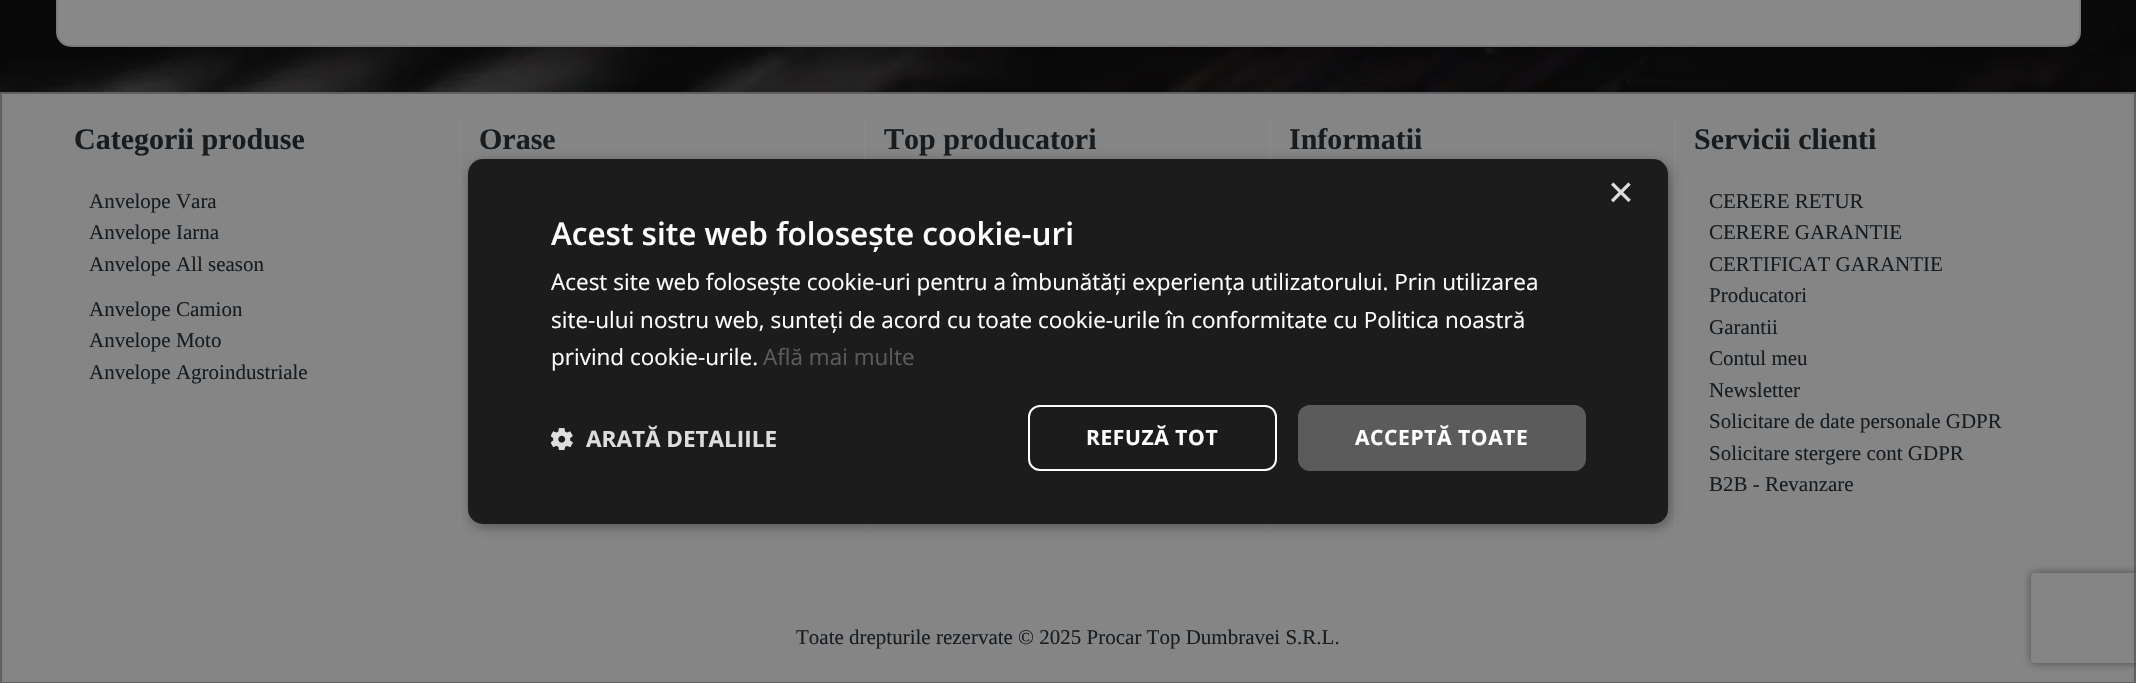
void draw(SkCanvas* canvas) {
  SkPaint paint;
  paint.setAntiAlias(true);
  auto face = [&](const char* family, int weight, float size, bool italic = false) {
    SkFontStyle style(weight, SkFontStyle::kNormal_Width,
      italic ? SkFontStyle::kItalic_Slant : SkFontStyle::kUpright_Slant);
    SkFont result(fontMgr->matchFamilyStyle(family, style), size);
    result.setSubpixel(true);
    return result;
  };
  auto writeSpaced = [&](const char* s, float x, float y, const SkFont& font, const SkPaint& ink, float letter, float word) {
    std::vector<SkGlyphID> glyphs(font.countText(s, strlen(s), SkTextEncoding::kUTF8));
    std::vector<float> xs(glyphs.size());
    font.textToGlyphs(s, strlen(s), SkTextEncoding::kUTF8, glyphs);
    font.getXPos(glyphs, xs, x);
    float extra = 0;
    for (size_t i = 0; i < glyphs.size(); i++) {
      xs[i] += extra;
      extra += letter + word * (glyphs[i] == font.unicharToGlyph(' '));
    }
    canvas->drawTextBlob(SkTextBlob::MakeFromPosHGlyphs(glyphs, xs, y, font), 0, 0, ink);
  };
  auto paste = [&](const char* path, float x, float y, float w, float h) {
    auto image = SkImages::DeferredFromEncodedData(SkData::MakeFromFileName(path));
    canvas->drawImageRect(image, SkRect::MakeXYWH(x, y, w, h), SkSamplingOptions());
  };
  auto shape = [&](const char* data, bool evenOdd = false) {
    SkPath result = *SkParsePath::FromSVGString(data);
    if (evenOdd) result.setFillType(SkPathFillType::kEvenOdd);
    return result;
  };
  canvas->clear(0xffffffff);
  paste("img/1.png", 0, 0, 2136, 92);
  paint.setColor(0xff888888);
  canvas->drawRoundRect(SkRect::MakeXYWH(57, -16, 2023, 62), 14, 14, paint);
  paint.setStroke(true);
  paint.setStrokeWidth(2);
  paint.setColor(0xff787a7c);
  canvas->drawRoundRect(SkRect::MakeXYWH(57, -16, 2023, 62), 14, 14, paint);
  paint.setStroke(false);
  paint.setColor(0x29090909);
  paint.setMaskFilter(SkMaskFilter::MakeBlur(kNormal_SkBlurStyle, 11));
  canvas->drawRect(SkRect::MakeXYWH(0, 92, 2136, 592), paint);
  paint.setMaskFilter(nullptr);
  paint.setColor(0xff858586);
  canvas->drawRect(SkRect::MakeXYWH(1, 93, 2134, 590), paint);
  paint.setStroke(true);
  paint.setColor(0xff606060);
  canvas->drawRect(SkRect::MakeXYWH(1, 93, 2134, 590), paint);
  paint.setStroke(false);
  {
    const struct { float x, y, w, h; SkColor color; } items[] = {
      {459, 116, 2, 414, 0xff888888},
      {864, 116, 2, 414, 0xff888888},
      {1269, 116, 2, 414, 0xff888888},
      {1674, 116, 2, 414, 0xff888888},
      {2079, 116, 2, 414, 0xff888888},
    };
    for (auto [x, y, w, h, color] : items) {
      paint.setColor(color);
      canvas->drawRect(SkRect::MakeXYWH(x, y, w, h), paint);
    }
  }
  paint.setColor(0x59000000);
  paint.setMaskFilter(SkMaskFilter::MakeBlur(kNormal_SkBlurStyle, 6));
  canvas->drawRoundRect(SkRect::MakeXYWH(470, 162, 1200, 365), 15, 15, paint);
  paint.setMaskFilter(nullptr);
  paint.setColor(0xff1c1c1c);
  canvas->drawRoundRect(SkRect::MakeXYWH(468, 159, 1200, 365), 15, 15, paint);
  paste("img/2.png", 551, 428, 22, 22);
  paint.setStroke(true);
  paint.setColor(0xffffffff);
  canvas->drawRoundRect(SkRect::MakeXYWH(1029, 406, 247, 64), 11, 11, paint);
  paint.setStroke(false);
  paint.setColor(0xff5b5b5b);
  canvas->drawRoundRect(SkRect::MakeXYWH(1298, 405, 288, 66), 12, 12, paint);
  canvas->save();
  canvas->clipPath(shape("M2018 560H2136V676H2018ZM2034 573H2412C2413.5 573 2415 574.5 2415 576V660C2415 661.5 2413.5 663 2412 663H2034C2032.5 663 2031 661.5 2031 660V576C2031 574.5 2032.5 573 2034 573Z", true), true);
  paint.setColor(0xff494949);
  paint.setMaskFilter(SkMaskFilter::MakeBlur(kNormal_SkBlurStyle, 4));
  canvas->drawRoundRect(SkRect::MakeXYWH(2031, 573, 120, 90), 3, 3, paint);
  paint.setMaskFilter(nullptr);
  canvas->restore();
  auto f0 = face("Liberation Serif", 700, 30);
  paint.setColor(0xff191b1d);
  canvas->drawString("Categorii produse", 74, 149, f0, paint);
  auto f1 = face("Liberation Serif", 400, 21);
  {
    const struct { const char* s; float x, y; } items[] = {
      {"Anvelope Vara", 89, 208},
      {"Anvelope Iarna", 89, 239},
      {"Anvelope All season", 89, 271},
      {"Anvelope Camion", 89, 316},
      {"Anvelope Moto", 89, 347},
      {"Anvelope Agroindustriale", 89, 379},
    };
    for (auto [s, x, y] : items) {
      canvas->drawString(s, x, y, f1, paint);
    }
  }
  {
    const struct { const char* s; float x, y; } items[] = {
      {"Orase", 479, 149},
      {"Top producatori", 884, 149},
      {"Informatii", 1289, 149},
      {"Servicii clienti", 1694, 149},
    };
    for (auto [s, x, y] : items) {
      canvas->drawString(s, x, y, f0, paint);
    }
  }
  {
    const struct { const char* s; float x, y; } items[] = {
      {"CERERE RETUR", 1709, 208},
      {"CERERE GARANTIE", 1709, 239},
      {"CERTIFICAT GARANTIE", 1709, 271},
      {"Producatori", 1709, 302},
      {"Garantii", 1709, 334},
      {"Contul meu", 1709, 365},
      {"Newsletter", 1709, 397},
      {"Solicitare de date personale GDPR", 1709, 428},
      {"Solicitare stergere cont GDPR", 1709, 460},
      {"B2B - Revanzare", 1709, 491},
      {"Toate drepturile rezervate © 2025 Procar Top Dumbravei S.R.L.", 796, 644},
    };
    for (auto [s, x, y] : items) {
      canvas->drawString(s, x, y, f1, paint);
    }
  }
  auto f2 = face("Liberation Sans", 400, 44);
  paint.setColor(0xffdddddd);
  canvas->drawString("×", 1608, 207, f2, paint);
  auto f3 = face("Open Sans", 600, 31.5f);
  paint.setColor(0xffffffff);
  canvas->drawString("Acest site web folosește cookie-uri", 551, 245, f3, paint);
  auto f4 = face("Open Sans", 400, 22.5f);
  {
    const struct { const char* s; float x, y; } items[] = {
      {"Acest site web folosește cookie-uri pentru a îmbunătăți experiența utilizatorului. Prin utilizarea", 551, 290},
      {"site-ului nostru web, sunteți de acord cu toate cookie-urile în conformitate cu Politica noastră", 551, 328},
      {"privind cookie-urile.", 551, 365},
    };
    for (auto [s, x, y] : items) {
      canvas->drawString(s, x, y, f4, paint);
    }
  }
  paint.setColor(0xff5b5b5b);
  canvas->drawString("Află mai multe", 763, 365, f4, paint);
  auto f5 = face("Open Sans", 700, 22.5f);
  paint.setColor(0xffdddddd);
  canvas->drawString("ARATĂ DETALIILE", 586, 447, f5, paint);
  auto f6 = face("Open Sans", 700, 21);
  paint.setColor(0xffffffff);
  writeSpaced("REFUZĂ TOT", 1086, 445, f6, paint, 0.6f, 0);
  writeSpaced("ACCEPTĂ TOATE", 1355, 445, f6, paint, 0.6f, 0);
}
